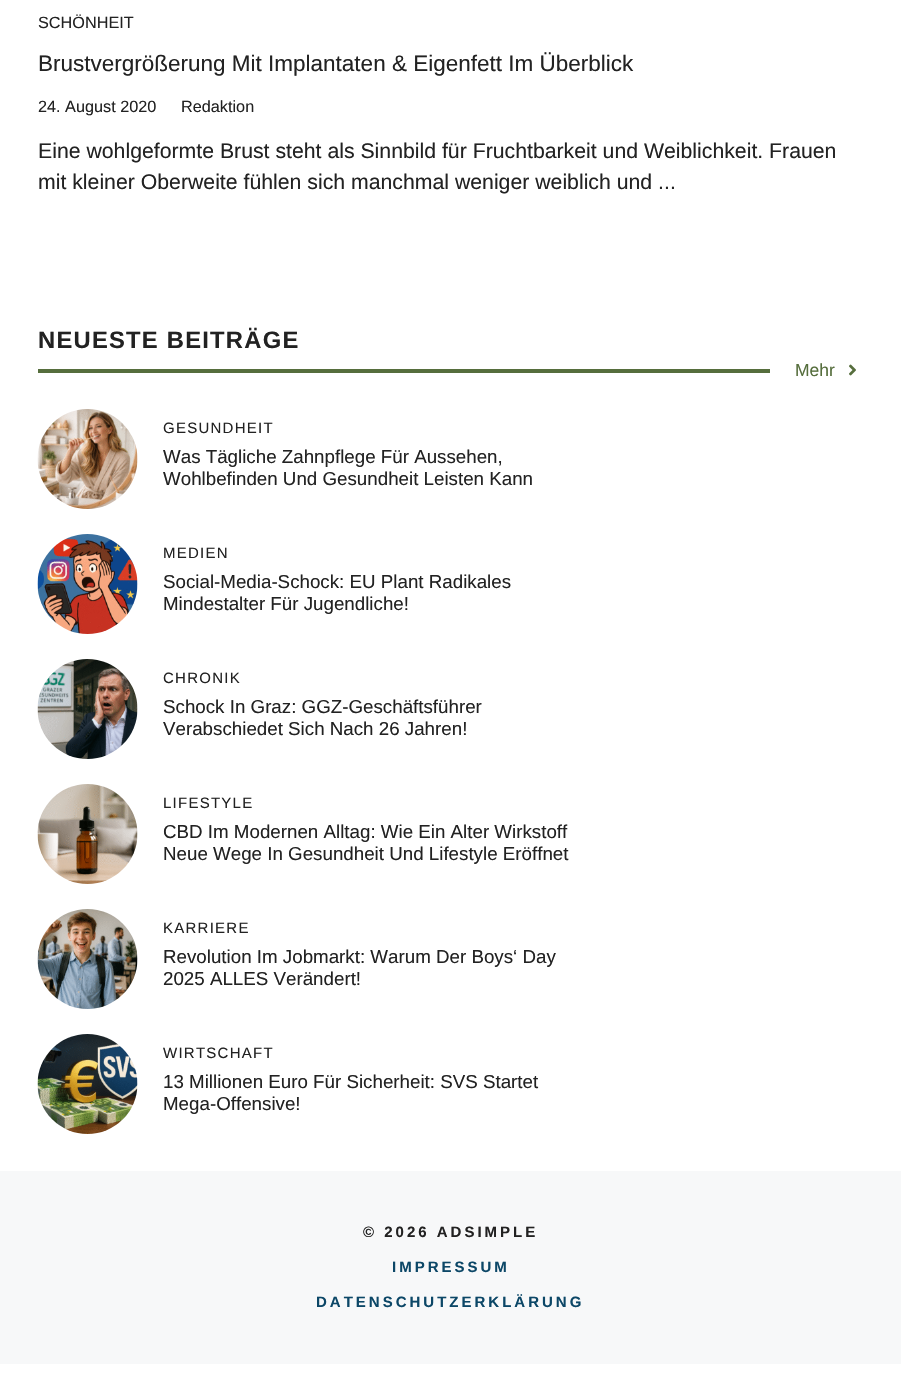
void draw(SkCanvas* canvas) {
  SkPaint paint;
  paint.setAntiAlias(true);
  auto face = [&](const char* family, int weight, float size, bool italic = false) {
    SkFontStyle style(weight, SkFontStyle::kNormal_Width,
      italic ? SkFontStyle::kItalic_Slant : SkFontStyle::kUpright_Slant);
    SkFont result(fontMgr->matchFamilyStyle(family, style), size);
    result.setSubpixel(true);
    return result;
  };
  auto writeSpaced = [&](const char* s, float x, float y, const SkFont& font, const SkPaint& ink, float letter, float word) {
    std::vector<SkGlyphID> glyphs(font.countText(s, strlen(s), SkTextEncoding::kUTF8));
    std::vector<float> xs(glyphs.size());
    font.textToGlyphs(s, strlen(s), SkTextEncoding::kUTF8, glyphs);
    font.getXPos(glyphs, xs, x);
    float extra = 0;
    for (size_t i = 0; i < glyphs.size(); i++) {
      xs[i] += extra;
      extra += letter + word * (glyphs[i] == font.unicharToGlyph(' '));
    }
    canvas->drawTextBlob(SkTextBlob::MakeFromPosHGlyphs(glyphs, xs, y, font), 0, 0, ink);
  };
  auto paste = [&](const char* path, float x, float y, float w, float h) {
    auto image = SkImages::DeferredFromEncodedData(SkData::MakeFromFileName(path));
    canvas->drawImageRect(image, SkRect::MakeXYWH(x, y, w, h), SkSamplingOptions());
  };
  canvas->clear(0xffffffff);
  paint.setColor(0xff566e3d);
  canvas->drawRect(SkRect::MakeXYWH(38, 369, 732, 4), paint);
  paste("img/1.png", 849, 364, 7, 12);
  paste("img/2.png", 37, 409, 101, 100);
  paste("img/3.png", 37, 534, 101, 100);
  paste("img/4.png", 37, 659, 101, 100);
  paste("img/5.png", 37, 784, 101, 100);
  paste("img/6.png", 37, 909, 101, 100);
  paste("img/7.png", 37, 1034, 101, 100);
  paint.setColor(0xfff7f8f9);
  canvas->drawRect(SkRect::MakeXYWH(0, 1171, 901, 193), paint);
  auto f0 = face("Liberation Sans", 400, 16.25f);
  paint.setColor(0xff222222);
  canvas->drawString("SCHÖNHEIT", 38, 28, f0, paint);
  auto f1 = face("Liberation Sans", 400, 22.5f);
  canvas->drawString("Brustvergrößerung Mit Implantaten & Eigenfett Im Überblick", 38, 71, f1, paint);
  canvas->drawString("24. August 2020", 38, 112, f0, paint);
  canvas->drawString("Redaktion", 181, 112, f0, paint);
  auto f2 = face("Liberation Sans", 400, 21.25f);
  canvas->drawString("Eine wohlgeformte Brust steht als Sinnbild für Fruchtbarkeit und Weiblichkeit. Frauen", 38, 158, f2, paint);
  canvas->drawString("mit kleiner Oberweite fühlen sich manchmal weniger weiblich und ...", 38, 189, f2, paint);
  auto f3 = face("Liberation Sans", 700, 23.75f);
  writeSpaced("NEUESTE BEITRÄGE", 38, 348, f3, paint, 1.25f, 0);
  auto f4 = face("Liberation Sans", 400, 17.5f);
  paint.setColor(0xff566e3d);
  canvas->drawString("Mehr", 795, 376, f4, paint);
  auto f5 = face("Liberation Sans", 400, 15);
  paint.setColor(0xff222222);
  writeSpaced("GESUNDHEIT", 163, 433, f5, paint, 1.25f, 0);
  auto f6 = face("Liberation Sans", 400, 18.75f);
  canvas->drawString("Was Tägliche Zahnpflege Für Aussehen,", 163, 463, f6, paint);
  canvas->drawString("Wohlbefinden Und Gesundheit Leisten Kann", 163, 485, f6, paint);
  writeSpaced("MEDIEN", 163, 558, f5, paint, 1.25f, 0);
  canvas->drawString("Social-Media-Schock: EU Plant Radikales", 163, 588, f6, paint);
  canvas->drawString("Mindestalter Für Jugendliche!", 163, 610, f6, paint);
  writeSpaced("CHRONIK", 163, 683, f5, paint, 1.25f, 0);
  canvas->drawString("Schock In Graz: GGZ-Geschäftsführer", 163, 713, f6, paint);
  canvas->drawString("Verabschiedet Sich Nach 26 Jahren!", 163, 735, f6, paint);
  writeSpaced("LIFESTYLE", 163, 808, f5, paint, 1.25f, 0);
  canvas->drawString("CBD Im Modernen Alltag: Wie Ein Alter Wirkstoff", 163, 838, f6, paint);
  canvas->drawString("Neue Wege In Gesundheit Und Lifestyle Eröffnet", 163, 860, f6, paint);
  writeSpaced("KARRIERE", 163, 933, f5, paint, 1.25f, 0);
  canvas->drawString("Revolution Im Jobmarkt: Warum Der Boys‘ Day", 163, 963, f6, paint);
  canvas->drawString("2025 ALLES Verändert!", 163, 985, f6, paint);
  writeSpaced("WIRTSCHAFT", 163, 1058, f5, paint, 1.25f, 0);
  canvas->drawString("13 Millionen Euro Für Sicherheit: SVS Startet", 163, 1088, f6, paint);
  canvas->drawString("Mega-Offensive!", 163, 1110, f6, paint);
  auto f7 = face("Liberation Sans", 700, 15);
  writeSpaced("© 2026 ADSIMPLE", 363, 1237, f7, paint, 3, 0);
  paint.setColor(0xff0c4767);
  writeSpaced("IMPRESSUM", 392, 1272, f7, paint, 3, 0);
  writeSpaced("DATENSCHUTZERKLÄRUNG", 316, 1307, f7, paint, 3, 0);
}
